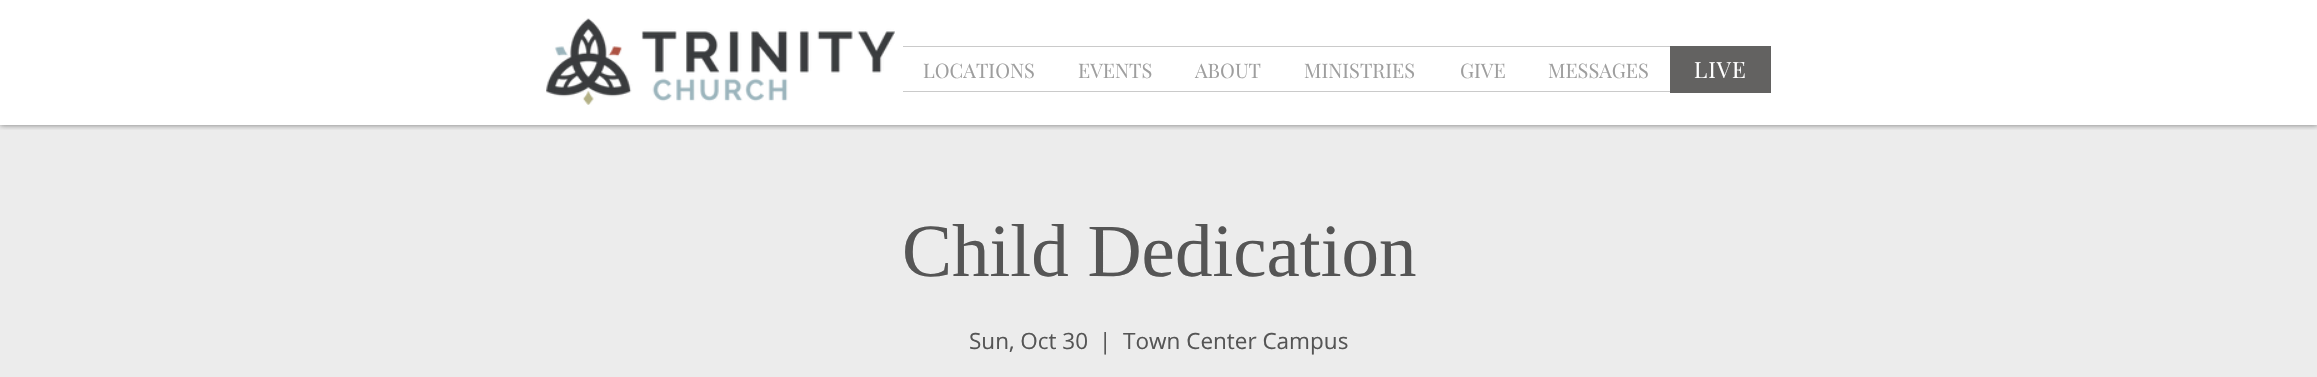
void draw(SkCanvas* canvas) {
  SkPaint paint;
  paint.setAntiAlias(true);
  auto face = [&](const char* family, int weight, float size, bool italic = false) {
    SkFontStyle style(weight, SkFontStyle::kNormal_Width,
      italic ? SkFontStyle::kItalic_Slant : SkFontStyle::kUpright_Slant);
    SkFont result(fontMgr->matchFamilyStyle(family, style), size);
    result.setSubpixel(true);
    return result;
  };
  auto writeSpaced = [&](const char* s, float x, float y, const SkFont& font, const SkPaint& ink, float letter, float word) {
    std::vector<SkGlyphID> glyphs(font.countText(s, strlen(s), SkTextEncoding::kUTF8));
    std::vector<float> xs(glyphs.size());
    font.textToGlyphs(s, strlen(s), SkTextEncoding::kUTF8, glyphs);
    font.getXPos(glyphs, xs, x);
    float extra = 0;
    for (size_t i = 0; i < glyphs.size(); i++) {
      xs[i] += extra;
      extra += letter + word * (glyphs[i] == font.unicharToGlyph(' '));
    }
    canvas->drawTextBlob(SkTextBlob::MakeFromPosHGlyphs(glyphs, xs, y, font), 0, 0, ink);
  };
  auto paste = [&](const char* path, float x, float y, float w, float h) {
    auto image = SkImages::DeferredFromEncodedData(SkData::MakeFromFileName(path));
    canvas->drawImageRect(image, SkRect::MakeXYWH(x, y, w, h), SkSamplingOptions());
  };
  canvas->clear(0xffffffff);
  paint.setColor(0xffececec);
  canvas->drawRect(SkRect::MakeXYWH(0, 125, 2317, 252), paint);
  canvas->save();
  canvas->clipRect(SkRect::MakeXYWH(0, 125, 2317, 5));
  paint.setColor(0x80000000);
  paint.setMaskFilter(SkMaskFilter::MakeBlur(kNormal_SkBlurStyle, 3));
  canvas->drawRect(SkRect::MakeXYWH(0, 0, 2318, 125), paint);
  paint.setMaskFilter(nullptr);
  canvas->restore();
  paste("img/1.png", 546, 18, 349, 87);
  {
    const struct { float x, y, w, h; SkColor color; } items[] = {
      {903, 46, 767, 1, 0xffcacaca},
      {903, 91, 767, 1, 0xffcacaca},
      {1670, 46, 101, 47, 0xff636261},
    };
    for (auto [x, y, w, h, color] : items) {
      paint.setColor(color);
      canvas->drawRect(SkRect::MakeXYWH(x, y, w, h), paint);
    }
  }
  auto f0 = face("Playfair Display", 400, 20);
  paint.setColor(0xff9e9e9e);
  {
    const struct { const char* s; float x, y; } items[] = {
      {"LOCATIONS", 923, 78},
      {"EVENTS", 1078, 78},
      {"ABOUT", 1195, 78},
      {"MINISTRIES", 1304, 78},
      {"GIVE", 1460, 78},
      {"MESSAGES", 1548, 78},
    };
    for (auto [s, x, y] : items) {
      canvas->drawString(s, x, y, f0, paint);
    }
  }
  auto f1 = face("Playfair Display", 400, 22.5f);
  paint.setColor(0xffffffff);
  writeSpaced("LIVE", 1694, 78, f1, paint, 1, 0);
  auto f2 = face("Liberation Serif", 400, 75);
  paint.setColor(0xff555555);
  canvas->drawString("Child Dedication", 902, 276, f2, paint);
  auto f3 = face("Open Sans", 400, 22.5f);
  {
    const struct { const char* s; float x, y; } items[] = {
      {"Sun, Oct 30", 969, 349},
      {"|", 1099, 349},
      {"Town Center Campus", 1123, 349},
    };
    for (auto [s, x, y] : items) {
      canvas->drawString(s, x, y, f3, paint);
    }
  }
}
